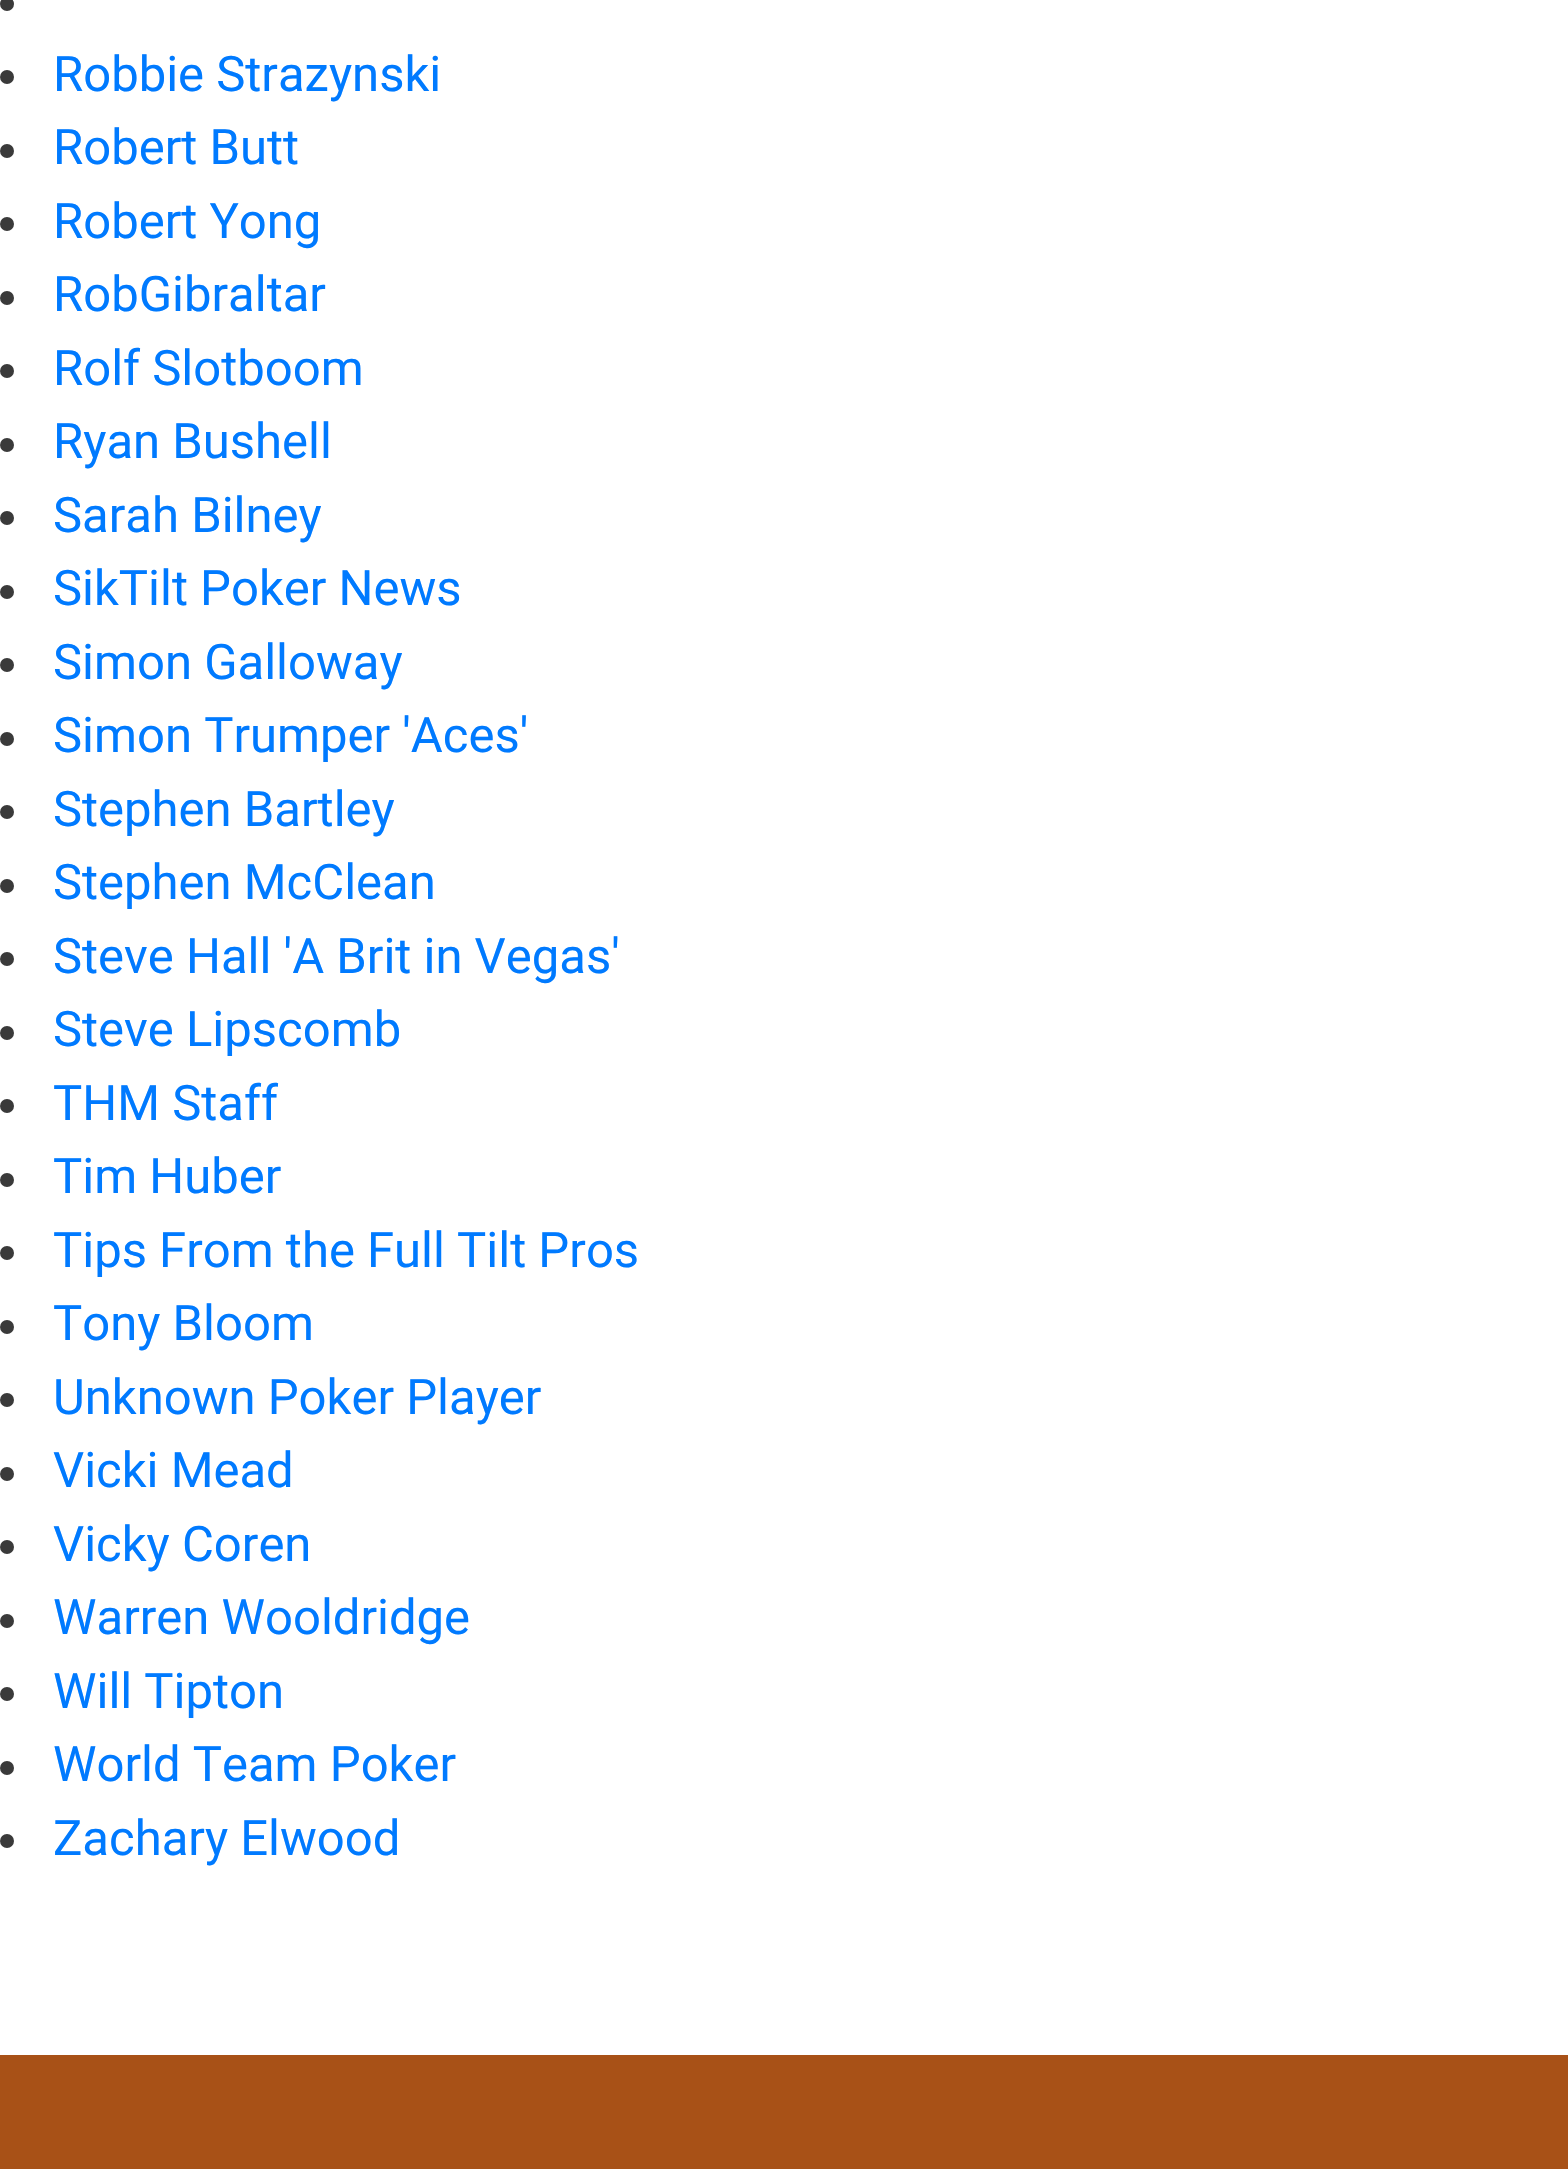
void draw(SkCanvas* canvas) {
  SkPaint paint;
  paint.setAntiAlias(true);
  auto face = [&](const char* family, int weight, float size, bool italic = false) {
    SkFontStyle style(weight, SkFontStyle::kNormal_Width,
      italic ? SkFontStyle::kItalic_Slant : SkFontStyle::kUpright_Slant);
    SkFont result(fontMgr->matchFamilyStyle(family, style), size);
    result.setSubpixel(true);
    return result;
  };
  canvas->clear(0xffffffff);
  paint.setColor(0xff3a3a3a);
  canvas->drawCircle(7, 4, 7, paint);
  canvas->drawCircle(7, 77, 7, paint);
  canvas->drawCircle(7, 151, 7, paint);
  canvas->drawCircle(7, 224, 7, paint);
  canvas->drawCircle(7, 298, 7, paint);
  canvas->drawCircle(7, 371, 7, paint);
  canvas->drawCircle(7, 445, 7, paint);
  canvas->drawCircle(7, 518, 7, paint);
  canvas->drawCircle(7, 592, 7, paint);
  canvas->drawCircle(7, 665, 7, paint);
  canvas->drawCircle(7, 739, 7, paint);
  canvas->drawCircle(7, 812, 7, paint);
  canvas->drawCircle(7, 886, 7, paint);
  canvas->drawCircle(7, 959, 7, paint);
  canvas->drawCircle(7, 1033, 7, paint);
  canvas->drawCircle(7, 1106, 7, paint);
  canvas->drawCircle(7, 1180, 7, paint);
  canvas->drawCircle(7, 1253, 7, paint);
  canvas->drawCircle(7, 1327, 7, paint);
  canvas->drawCircle(7, 1400, 7, paint);
  canvas->drawCircle(7, 1474, 7, paint);
  canvas->drawCircle(7, 1547, 7, paint);
  canvas->drawCircle(7, 1621, 7, paint);
  canvas->drawCircle(7, 1694, 7, paint);
  canvas->drawCircle(7, 1768, 7, paint);
  canvas->drawCircle(7, 1841, 7, paint);
  paint.setColor(0xffa85117);
  canvas->drawRect(SkRect::MakeXYWH(0, 2055, 1568, 114), paint);
  auto f0 = face("Roboto", 400, 49);
  paint.setColor(0xff007aff);
  {
    const struct { const char* s; float x, y; } items[] = {
      {"Robbie Strazynski", 53, 91},
      {"Robert Butt", 53, 164},
      {"Robert Yong", 53, 238},
      {"RobGibraltar", 53, 311},
      {"Rolf Slotboom", 53, 385},
      {"Ryan Bushell", 53, 458},
      {"Sarah Bilney", 53, 532},
      {"SikTilt Poker News", 53, 605},
      {"Simon Galloway", 53, 679},
      {"Simon Trumper 'Aces'", 53, 752},
      {"Stephen Bartley", 53, 826},
      {"Stephen McClean", 53, 899},
      {"Steve Hall 'A Brit in Vegas'", 53, 973},
      {"Steve Lipscomb", 53, 1046},
      {"THM Staff", 53, 1120},
      {"Tim Huber", 53, 1193},
      {"Tips From the Full Tilt Pros", 53, 1267},
      {"Tony Bloom", 53, 1340},
      {"Unknown Poker Player", 53, 1414},
      {"Vicki Mead", 53, 1487},
      {"Vicky Coren", 53, 1561},
      {"Warren Wooldridge", 53, 1634},
      {"Will Tipton", 53, 1708},
      {"World Team Poker", 53, 1781},
      {"Zachary Elwood", 53, 1855},
    };
    for (auto [s, x, y] : items) {
      canvas->drawString(s, x, y, f0, paint);
    }
  }
}
